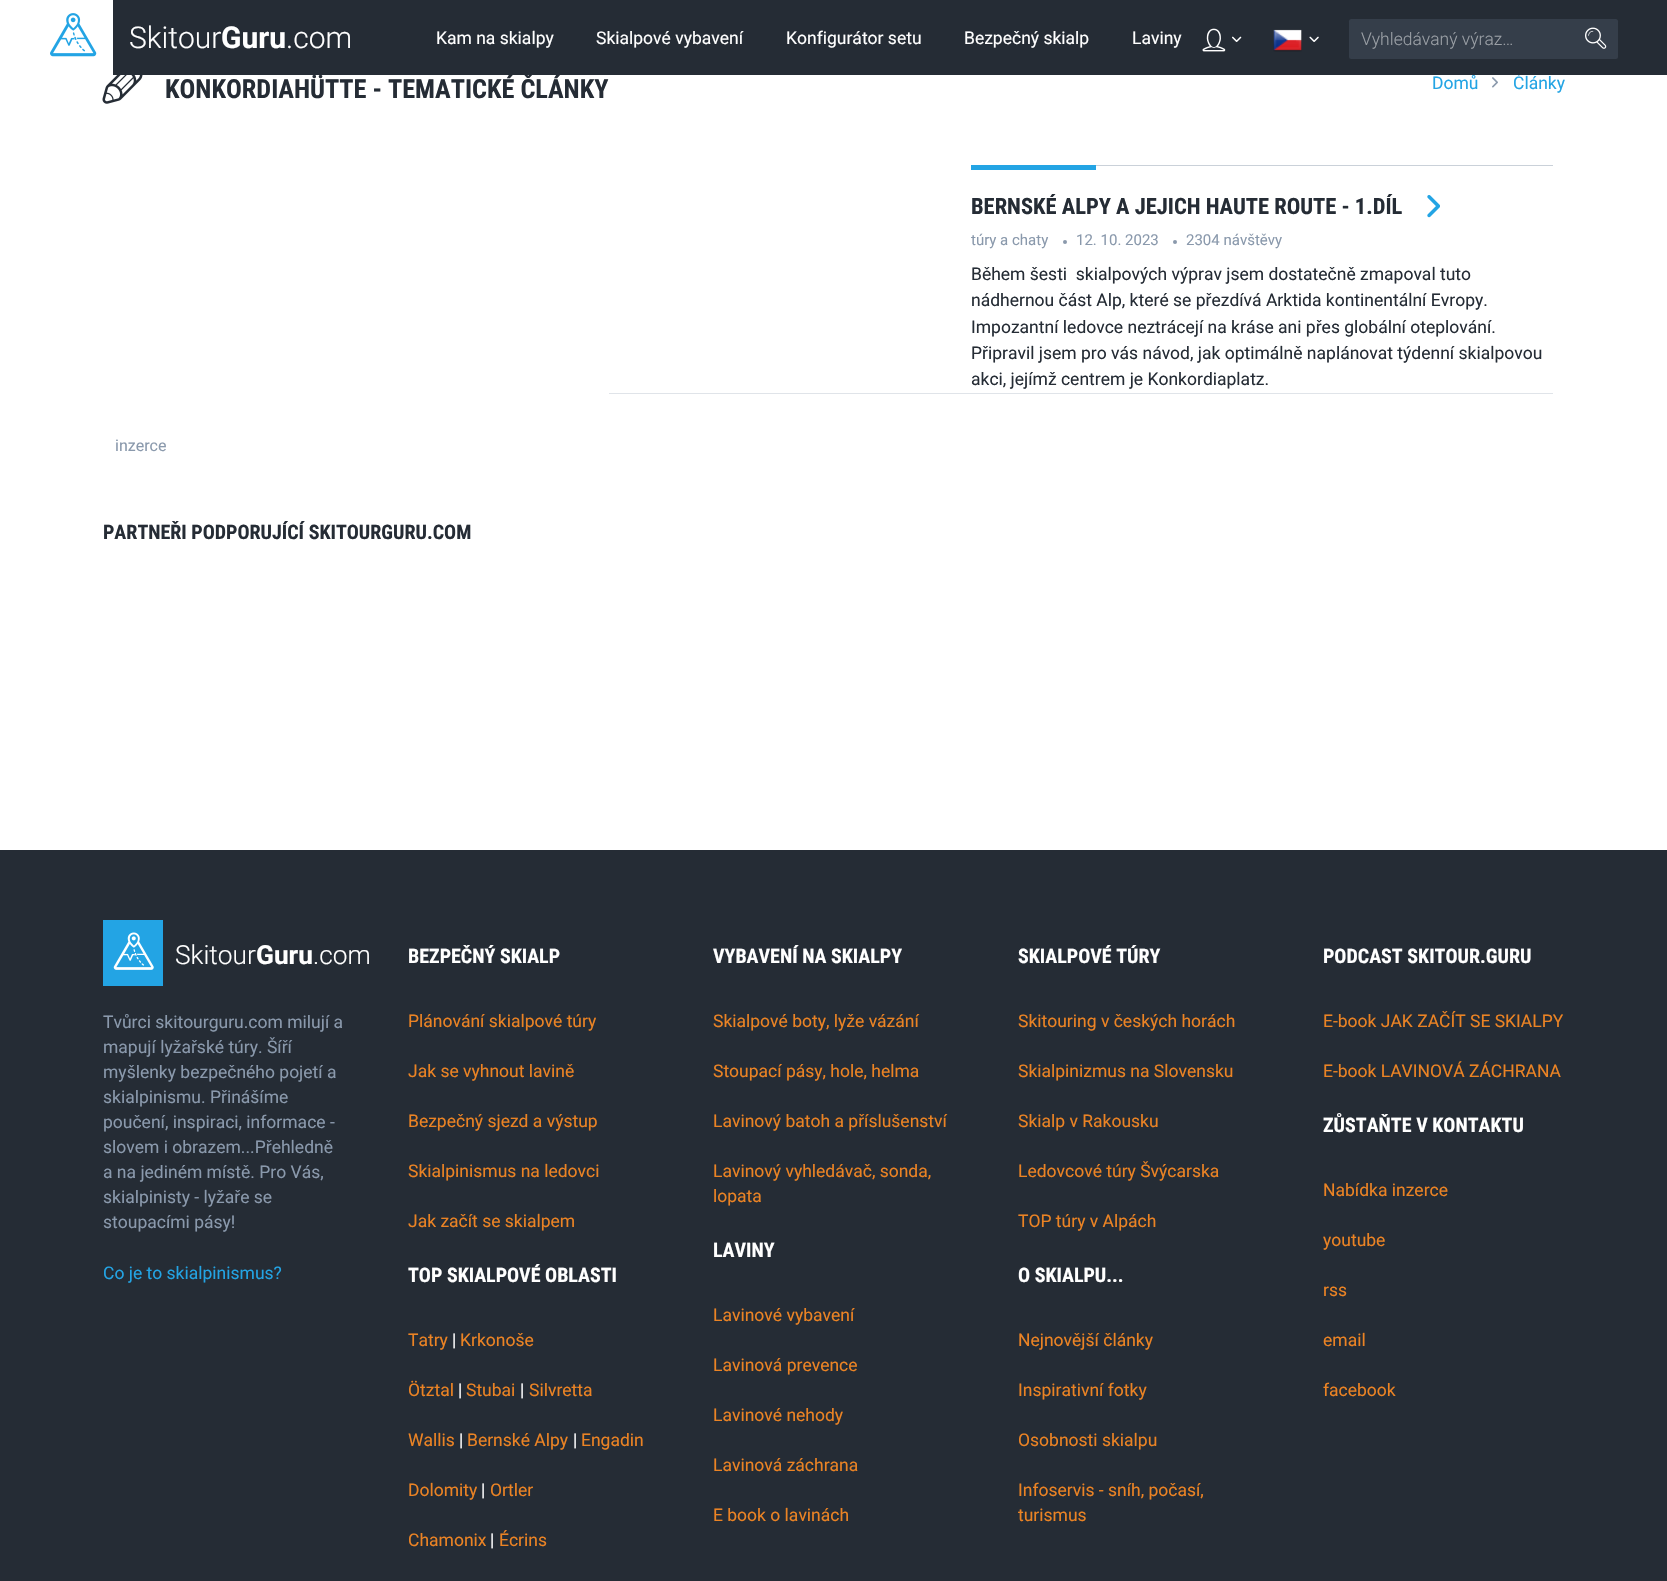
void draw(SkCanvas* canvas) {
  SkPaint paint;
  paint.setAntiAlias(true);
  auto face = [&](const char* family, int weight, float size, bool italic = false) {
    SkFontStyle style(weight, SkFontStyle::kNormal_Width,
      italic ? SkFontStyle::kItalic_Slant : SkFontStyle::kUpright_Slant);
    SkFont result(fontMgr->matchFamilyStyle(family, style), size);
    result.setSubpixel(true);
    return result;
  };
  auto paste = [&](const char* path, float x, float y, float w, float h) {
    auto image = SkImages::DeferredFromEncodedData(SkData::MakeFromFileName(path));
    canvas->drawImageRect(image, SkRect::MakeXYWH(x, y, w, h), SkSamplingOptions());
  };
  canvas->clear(0xffffffff);
  paste("img/1.png", 50, 13, 47, 44);
  paste("img/7.png", 102, 75, 41, 29);
  paste("img/8.png", 1492, 77, 6, 11);
  paint.setColor(0xffcad1d9);
  canvas->drawRect(SkRect::MakeXYWH(1096, 165, 457, 1), paint);
  paint.setColor(0xff23a4e4);
  canvas->drawRect(SkRect::MakeXYWH(971, 165, 125, 5), paint);
  paste("img/9.png", 1427, 195, 13, 23);
  paint.setColor(0xff8a99ac);
  canvas->drawCircle(1065, 242, 2, paint);
  canvas->drawCircle(1175, 242, 2, paint);
  {
    const struct { float x, y, w, h; SkColor color; } items[] = {
      {609, 393, 944, 1, 0xffe0e4e9},
      {0, 850, 1667, 731, 0xff252c35},
      {103, 920, 60, 66, 0xff23a4e4},
    };
    for (auto [x, y, w, h, color] : items) {
      paint.setColor(color);
      canvas->drawRect(SkRect::MakeXYWH(x, y, w, h), paint);
    }
  }
  paste("img/10.png", 113, 932, 41, 38);
  auto f0 = face("Roboto Condensed", 700, 26.25f);
  paint.setColor(0xff252c35);
  canvas->drawString("KONKORDIAHÜTTE - TEMATICKÉ ČLÁNKY", 165, 98, f0, paint);
  auto f1 = face("Roboto", 400, 17.5f);
  paint.setColor(0xff23a4e4);
  canvas->drawString("Domů", 1432, 89, f1, paint);
  canvas->drawString("Články", 1513, 89, f1, paint);
  paint.setColor(0xff252c35);
  canvas->drawRect(SkRect::MakeXYWH(113, 0, 1554, 75), paint);
  paint.setColor(0xff353e4a);
  canvas->drawRoundRect(SkRect::MakeXYWH(1349, 19, 269, 40), 2.5f, 2.5f, paint);
  paste("img/6.png", 1585, 27, 22, 22);
  auto f2 = face("Roboto", 300, 17.5f);
  paint.setColor(0xff9a9fa5);
  canvas->drawString("Vyhledávaný výraz…", 1361, 45, f2, paint);
  paste("img/5.png", 1309, 36, 10, 6);
  paste("img/4.png", 1273, 29, 29, 23);
  paste("img/3.png", 1232, 36, 10, 6);
  paste("img/2.png", 1202, 28, 24, 24);
  paint.setColor(0xffffffff);
  {
    const struct { const char* s; float x, y; } items[] = {
      {"Laviny", 1132, 44},
      {"Bezpečný skialp", 964, 44},
      {"Konfigurátor setu", 786, 44},
      {"Skialpové vybavení", 596, 44},
      {"Kam na skialpy", 436, 44},
    };
    for (auto [s, x, y] : items) {
      canvas->drawString(s, x, y, f1, paint);
    }
  }
  auto f3 = face("Roboto", 300, 30);
  canvas->drawString(".com", 286, 48, f3, paint);
  auto f4 = face("Roboto", 700, 30);
  canvas->drawString("Guru", 221, 48, f4, paint);
  canvas->drawString("Skitour", 129, 48, f3, paint);
  canvas->save();
  canvas->clipRect(SkRect::MakeXYWH(971, 194, 469, 26));
  auto f5 = face("Roboto Condensed", 700, 22.5f);
  paint.setColor(0xff252c35);
  canvas->drawString("BERNSKÉ ALPY A JEJICH HAUTE ROUTE - 1.DÍL", 971, 214, f5, paint);
  canvas->restore();
  auto f6 = face("Roboto", 400, 15);
  paint.setColor(0xff8a99ac);
  {
    const struct { const char* s; float x, y; } items[] = {
      {"túry a chaty", 971, 245},
      {"12. 10. 2023", 1076, 245},
      {"2304 návštěvy", 1186, 245},
    };
    for (auto [s, x, y] : items) {
      canvas->drawString(s, x, y, f6, paint);
    }
  }
  paint.setColor(0xff252c35);
  {
    const struct { const char* s; float x, y; } items[] = {
      {"Během šesti  skialpových výprav jsem dostatečně zmapoval tuto", 971, 280},
      {"nádhernou část Alp, které se přezdívá Arktida kontinentální Evropy.", 971, 306},
      {"Impozantní ledovce neztrácejí na kráse ani přes globální oteplování.", 971, 333},
      {"Připravil jsem pro vás návod, jak optimálně naplánovat týdenní skialpovou", 971, 359},
      {"akci, jejímž centrem je Konkordiaplatz.", 971, 385},
    };
    for (auto [s, x, y] : items) {
      canvas->drawString(s, x, y, f1, paint);
    }
  }
  auto f7 = face("Roboto", 400, 16);
  paint.setColor(0xff8a99ac);
  canvas->drawString("inzerce", 115, 451, f7, paint);
  auto f8 = face("Roboto Condensed", 700, 20);
  paint.setColor(0xff252c35);
  canvas->drawString("PARTNEŘI PODPORUJÍCÍ SKITOURGURU.COM", 103, 539, f8, paint);
  auto f9 = face("Roboto", 300, 26.25f);
  paint.setColor(0xffffffff);
  canvas->drawString("Skitour", 175, 964, f9, paint);
  auto f10 = face("Roboto", 700, 26.25f);
  canvas->drawString("Guru", 256, 964, f10, paint);
  canvas->drawString(".com", 313, 964, f9, paint);
  paint.setColor(0xff8a99ac);
  {
    const struct { const char* s; float x, y; } items[] = {
      {"Tvůrci skitourguru.com milují a", 103, 1028},
      {"mapují lyžařské túry. Šíří", 103, 1053},
      {"myšlenky bezpečného pojetí a", 103, 1078},
      {"skialpinismu. Přinášíme", 103, 1103},
      {"poučení, inspiraci, informace -", 103, 1128},
      {"slovem i obrazem...Přehledně", 103, 1153},
      {"a na jediném místě. Pro Vás,", 103, 1178},
      {"skialpinisty - lyžaře se", 103, 1203},
      {"stoupacími pásy!", 103, 1228},
    };
    for (auto [s, x, y] : items) {
      canvas->drawString(s, x, y, f1, paint);
    }
  }
  paint.setColor(0xff23a4e4);
  canvas->drawString("Co je to skialpinismus?", 103, 1279, f1, paint);
  paint.setColor(0xffffffff);
  canvas->drawString("BEZPEČNÝ SKIALP", 408, 963, f8, paint);
  paint.setColor(0xffeb8324);
  {
    const struct { const char* s; float x, y; } items[] = {
      {"Plánování skialpové túry", 408, 1027},
      {"Jak se vyhnout lavině", 408, 1077},
      {"Bezpečný sjezd a výstup", 408, 1127},
      {"Skialpinismus na ledovci", 408, 1177},
      {"Jak začít se skialpem", 408, 1227},
    };
    for (auto [s, x, y] : items) {
      canvas->drawString(s, x, y, f1, paint);
    }
  }
  paint.setColor(0xffffffff);
  canvas->drawString("TOP SKIALPOVÉ OBLASTI", 408, 1282, f8, paint);
  paint.setColor(0xffeb8324);
  canvas->drawString("Tatry", 408, 1346, f1, paint);
  paint.setColor(0xffffffff);
  canvas->drawString("|", 452, 1346, f1, paint);
  paint.setColor(0xffeb8324);
  canvas->drawString("Krkonoše", 460, 1346, f1, paint);
  canvas->drawString("Ötztal", 408, 1396, f1, paint);
  paint.setColor(0xffffffff);
  canvas->drawString("|", 458, 1396, f1, paint);
  paint.setColor(0xffeb8324);
  canvas->drawString("Stubai", 466, 1396, f1, paint);
  paint.setColor(0xffffffff);
  canvas->drawString("|", 520, 1396, f1, paint);
  paint.setColor(0xffeb8324);
  canvas->drawString("Silvretta", 529, 1396, f1, paint);
  canvas->drawString("Wallis", 408, 1446, f1, paint);
  paint.setColor(0xffffffff);
  canvas->drawString("|", 459, 1446, f1, paint);
  paint.setColor(0xffeb8324);
  canvas->drawString("Bernské Alpy", 467, 1446, f1, paint);
  paint.setColor(0xffffffff);
  canvas->drawString("|", 573, 1446, f1, paint);
  paint.setColor(0xffeb8324);
  canvas->drawString("Engadin", 581, 1446, f1, paint);
  canvas->drawString("Dolomity", 408, 1496, f1, paint);
  paint.setColor(0xffffffff);
  canvas->drawString("|", 481, 1496, f1, paint);
  paint.setColor(0xffeb8324);
  canvas->drawString("Ortler", 490, 1496, f1, paint);
  canvas->drawString("Chamonix", 408, 1546, f1, paint);
  paint.setColor(0xffffffff);
  canvas->drawString("|", 490, 1546, f1, paint);
  paint.setColor(0xffeb8324);
  canvas->drawString("Écrins", 499, 1546, f1, paint);
  paint.setColor(0xffffffff);
  canvas->drawString("VYBAVENÍ NA SKIALPY", 713, 963, f8, paint);
  paint.setColor(0xffeb8324);
  {
    const struct { const char* s; float x, y; } items[] = {
      {"Skialpové boty, lyže vázání", 713, 1027},
      {"Stoupací pásy, hole, helma", 713, 1077},
      {"Lavinový batoh a příslušenství", 713, 1127},
      {"Lavinový vyhledávač, sonda,", 713, 1177},
      {"lopata", 713, 1202},
    };
    for (auto [s, x, y] : items) {
      canvas->drawString(s, x, y, f1, paint);
    }
  }
  paint.setColor(0xffffffff);
  canvas->drawString("LAVINY", 713, 1257, f8, paint);
  paint.setColor(0xffeb8324);
  {
    const struct { const char* s; float x, y; } items[] = {
      {"Lavinové vybavení", 713, 1321},
      {"Lavinová prevence", 713, 1371},
      {"Lavinové nehody", 713, 1421},
      {"Lavinová záchrana", 713, 1471},
      {"E book o lavinách", 713, 1521},
    };
    for (auto [s, x, y] : items) {
      canvas->drawString(s, x, y, f1, paint);
    }
  }
  paint.setColor(0xffffffff);
  canvas->drawString("SKIALPOVÉ TÚRY", 1018, 963, f8, paint);
  paint.setColor(0xffeb8324);
  {
    const struct { const char* s; float x, y; } items[] = {
      {"Skitouring v českých horách", 1018, 1027},
      {"Skialpinizmus na Slovensku", 1018, 1077},
      {"Skialp v Rakousku", 1018, 1127},
      {"Ledovcové túry Švýcarska", 1018, 1177},
      {"TOP túry v Alpách", 1018, 1227},
    };
    for (auto [s, x, y] : items) {
      canvas->drawString(s, x, y, f1, paint);
    }
  }
  paint.setColor(0xffffffff);
  canvas->drawString("O SKIALPU...", 1018, 1282, f8, paint);
  paint.setColor(0xffeb8324);
  {
    const struct { const char* s; float x, y; } items[] = {
      {"Nejnovější články", 1018, 1346},
      {"Inspirativní fotky", 1018, 1396},
      {"Osobnosti skialpu", 1018, 1446},
      {"Infoservis - sníh, počasí,", 1018, 1496},
      {"turismus", 1018, 1521},
    };
    for (auto [s, x, y] : items) {
      canvas->drawString(s, x, y, f1, paint);
    }
  }
  paint.setColor(0xffffffff);
  canvas->drawString("PODCAST SKITOUR.GURU", 1323, 963, f8, paint);
  paint.setColor(0xffeb8324);
  canvas->drawString("E-book JAK ZAČÍT SE SKIALPY", 1323, 1027, f1, paint);
  canvas->drawString("E-book LAVINOVÁ ZÁCHRANA", 1323, 1077, f1, paint);
  paint.setColor(0xffffffff);
  canvas->drawString("ZŮSTAŇTE V KONTAKTU", 1323, 1132, f8, paint);
  paint.setColor(0xffeb8324);
  {
    const struct { const char* s; float x, y; } items[] = {
      {"Nabídka inzerce", 1323, 1196},
      {"youtube", 1323, 1246},
      {"rss", 1323, 1296},
      {"email", 1323, 1346},
      {"facebook", 1323, 1396},
    };
    for (auto [s, x, y] : items) {
      canvas->drawString(s, x, y, f1, paint);
    }
  }
}
